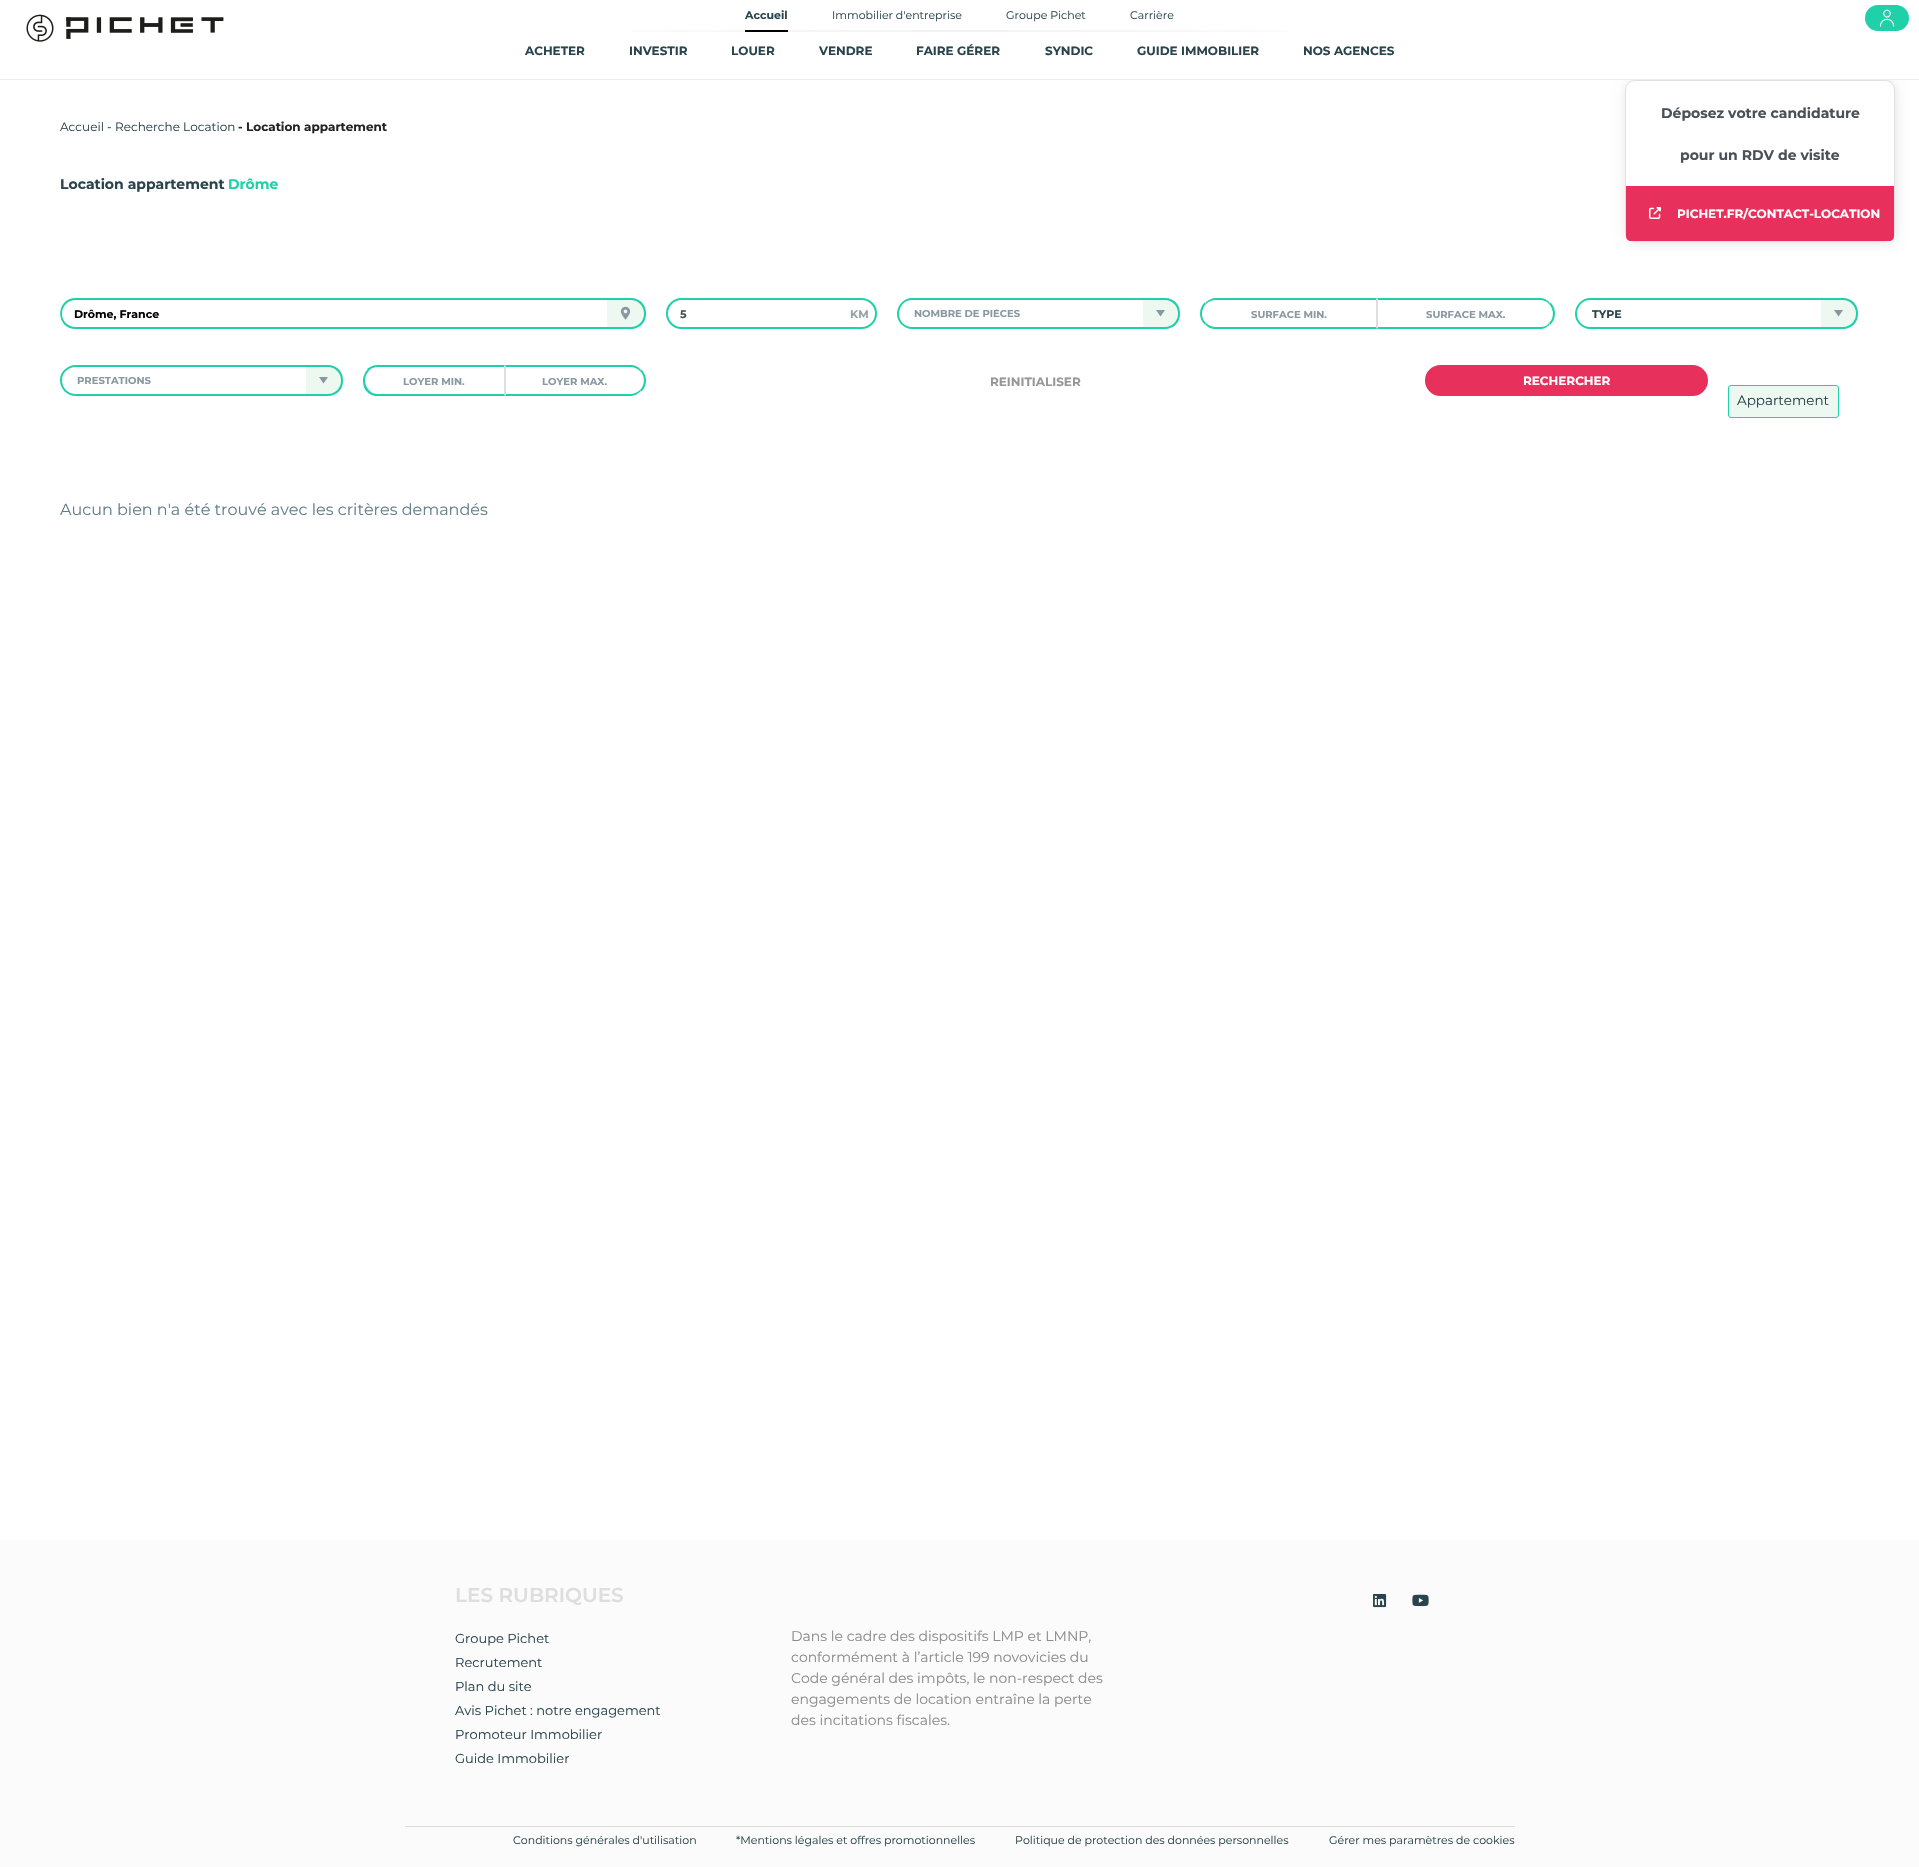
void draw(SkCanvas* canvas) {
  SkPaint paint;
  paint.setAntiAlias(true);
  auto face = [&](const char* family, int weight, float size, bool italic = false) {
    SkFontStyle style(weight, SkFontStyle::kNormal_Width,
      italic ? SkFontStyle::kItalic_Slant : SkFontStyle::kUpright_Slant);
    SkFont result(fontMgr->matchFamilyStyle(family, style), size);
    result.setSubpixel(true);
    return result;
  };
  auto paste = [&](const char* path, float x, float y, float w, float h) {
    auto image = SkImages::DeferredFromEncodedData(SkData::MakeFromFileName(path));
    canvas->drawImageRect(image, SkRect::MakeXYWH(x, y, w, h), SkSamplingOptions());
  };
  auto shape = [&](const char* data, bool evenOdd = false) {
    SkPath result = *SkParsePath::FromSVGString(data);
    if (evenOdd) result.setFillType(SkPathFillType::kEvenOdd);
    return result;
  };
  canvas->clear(0xffffffff);
  canvas->save();
  canvas->clipRect(SkRect::MakeXYWH(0, 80, 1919, 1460));
  paint.setColor(0x1a000000);
  paint.setMaskFilter(SkMaskFilter::MakeBlur(kNormal_SkBlurStyle, 6));
  canvas->drawRoundRect(SkRect::MakeXYWH(1626, 81, 270, 162), 10, 10, paint);
  paint.setMaskFilter(nullptr);
  canvas->restore();
  paint.setColor(0xffeeeeee);
  canvas->drawRect(SkRect::MakeXYWH(0, 79, 1919, 1), paint);
  paste("img/1.png", 26, 14, 198, 28);
  paste("img/2.png", 632, 30, 655, 2);
  paint.setColor(0xff000000);
  canvas->drawRect(SkRect::MakeXYWH(745, 30, 43, 2), paint);
  paint.setColor(0xff20d0a8);
  canvas->drawRoundRect(SkRect::MakeXYWH(1865, 5, 44, 26), 13, 13, paint);
  paste("img/3.png", 1879, 9, 16, 18);
  paint.setColor(0xffffffff);
  canvas->drawRoundRect(SkRect::MakeXYWH(1625.5f, 80.5f, 269, 161), 9.5f, 9.5f, paint);
  paint.setStroke(true);
  paint.setStrokeWidth(1);
  paint.setColor(0xffe0e0e0);
  canvas->drawRoundRect(SkRect::MakeXYWH(1625.5f, 80.5f, 269, 161), 9.5f, 9.5f, paint);
  paint.setStroke(false);
  paint.setColor(0xffe7305b);
  canvas->drawPath(shape("M1626 186H1894V236C1894 239 1892 241 1889 241H1631C1628 241 1626 239 1626 236Z"), paint);
  paste("img/4.png", 1649, 207, 12, 12);
  paint.setColor(0xff20d0a8);
  canvas->drawPath(shape("M76 298H608V329H76C55 329 55 298 76 298ZM76 300H608V327H76C68 327 62 321 62 314C62 306 68 300 76 300Z", true), paint);
  paint.setColor(0xffedf8f0);
  canvas->drawPath(shape("M607 298H631C639.5 298 646 304.5 646 313V314C646 322.5 639.5 329 631 329H607Z"), paint);
  paint.setColor(0xff20d0a8);
  canvas->drawPath(shape("M607 298H631C639.5 298 646 304.5 646 313V314C646 322.5 639.5 329 631 329H607ZM607 300H631C638 300 644 306 644 313V314C644 321 638 327 631 327H607Z", true), paint);
  paste("img/5.png", 620, 306, 11, 14);
  paint.setStroke(true);
  paint.setStrokeWidth(2);
  canvas->drawRoundRect(SkRect::MakeXYWH(667, 299, 209, 29), 14.5f, 14.5f, paint);
  paint.setStroke(false);
  canvas->drawPath(shape("M912 298H1144V329H912C904 329 897 322 897 314C897 305 904 298 912 298ZM912 300H1144V327H912C905 327 899 321 899 314C899 306 905 300 912 300Z", true), paint);
  paint.setColor(0xffedf8f0);
  canvas->drawPath(shape("M1143 298H1165C1173.5 298 1180 304.5 1180 313V314C1180 322.5 1173.5 329 1165 329H1143Z"), paint);
  paint.setColor(0xff20d0a8);
  canvas->drawPath(shape("M1143 298H1165C1173.5 298 1180 304.5 1180 313V314C1180 322.5 1173.5 329 1165 329H1143ZM1143 300H1165C1172 300 1178 306 1178 313V314C1178 321 1172 327 1165 327H1143Z", true), paint);
  paint.setColor(0xff8898a1);
  canvas->drawPath(shape("M1165 310L1160.5 316.5L1156 310Z"), paint);
  paint.setColor(0xff20d0a8);
  canvas->drawPath(shape("M1216 298C1212 298 1208 300 1205 303L1206 304C1208 302 1212 300 1216 300H1376L1377 298Z"), paint);
  paint.setColor(0xffdedede);
  canvas->drawPath(shape("M1377 298L1376 300V327L1377 329Z"), paint);
  paint.setColor(0xff20d0a8);
  canvas->drawPath(shape("M1377 329L1376 327H1216C1212 327 1208 325 1206 323L1205 324C1207 327 1211 329 1216 329Z"), paint);
  canvas->drawPath(shape("M1204.5 324.5C1198.5 318.5 1198.5 308.5 1204.5 302.5L1206 304C1201 309 1200.5 318 1206 323Z"), paint);
  canvas->drawPath(shape("M1377 298L1378 300H1540C1543 300 1547 301 1549 304L1550 303C1548 300 1544 298 1540 298Z"), paint);
  canvas->drawPath(shape("M1550.5 302.5C1556.5 308.5 1556.5 318.5 1550.5 324.5L1549 323C1554.5 318 1554 309 1549 304Z"), paint);
  canvas->drawPath(shape("M1540 329C1544 329 1548 327 1550 324L1549 323C1547 326 1544 327 1540 327H1378L1377 329Z"), paint);
  paint.setColor(0xffdedede);
  canvas->drawPath(shape("M1377 298V329L1378 327V300Z"), paint);
  paint.setColor(0xff20d0a8);
  canvas->drawPath(shape("M1590 298H1822V329H1590C1582 329 1575 322 1575 314C1575 305 1582 298 1590 298ZM1590 300H1822V327H1590C1583 327 1577 321 1577 314C1577 306 1583 300 1590 300Z", true), paint);
  paint.setColor(0xffedf8f0);
  canvas->drawPath(shape("M1821 298H1843C1851.5 298 1858 304.5 1858 313V314C1858 322.5 1851.5 329 1843 329H1821Z"), paint);
  paint.setColor(0xff20d0a8);
  canvas->drawPath(shape("M1821 298H1843C1851.5 298 1858 304.5 1858 313V314C1858 322.5 1851.5 329 1843 329H1821ZM1821 300H1843C1850 300 1856 306 1856 313V314C1856 321 1850 327 1843 327H1821Z", true), paint);
  paint.setColor(0xff8898a1);
  canvas->drawPath(shape("M1843 310L1838.5 316.5L1834 310Z"), paint);
  paint.setColor(0xff20d0a8);
  canvas->drawPath(shape("M76 365H307V396H76C67 396 60 389 60 380C60 372 67 365 76 365ZM76 367H307V394H76C68 394 62 388 62 380C62 373 68 367 76 367Z", true), paint);
  paint.setColor(0xffedf8f0);
  canvas->drawPath(shape("M306 365H328C336.5 365 343 371.5 343 380V381C343 389.5 336.5 396 328 396H306Z"), paint);
  paint.setColor(0xff20d0a8);
  canvas->drawPath(shape("M306 365H328C336.5 365 343 371.5 343 380V381C343 389.5 336.5 396 328 396H306ZM306 367H328C335 367 341 373 341 380V381C341 388 335 394 328 394H306Z", true), paint);
  paint.setColor(0xff8898a1);
  canvas->drawPath(shape("M328 377L323.5 383.5L319 377Z"), paint);
  paint.setColor(0xff20d0a8);
  canvas->drawPath(shape("M378 365C373 365 370 367 367 369L369 371C371 368 374 367 378 367H504L505 365Z"), paint);
  paint.setColor(0xffdedede);
  canvas->drawPath(shape("M505 365L504 367V394L505 396Z"), paint);
  paint.setColor(0xff20d0a8);
  canvas->drawPath(shape("M505 396L504 394H378C375 394 371 393 369 390L367 392C369 394 372 395 375 396Z"), paint);
  canvas->drawPath(shape("M363 379C363.5 375.5 365 372 367.5 369.5L369 371C363.5 376 364 385 369 390L367 392C363.5 388 363 384 363 379Z"), paint);
  canvas->drawPath(shape("M505 365L506 367H630C634 367 638 369 640 371L641 370C639 367 635 365 630 365Z"), paint);
  canvas->drawPath(shape("M641.5 369.5C647.5 375.5 647.5 385.5 641.5 391.5L640 390C645 385 645.5 376 640 371Z"), paint);
  canvas->drawPath(shape("M630 396C634 396 638 394 641 391L640 390C638 392 634 394 630 394H506L505 396Z"), paint);
  paint.setColor(0xffdedede);
  canvas->drawPath(shape("M505 365V396L506 394V367Z"), paint);
  paint.setColor(0xffe7305b);
  canvas->drawRoundRect(SkRect::MakeXYWH(1426, 366, 281, 29), 14.5f, 14.5f, paint);
  paint.setStroke(true);
  canvas->drawRoundRect(SkRect::MakeXYWH(1426, 366, 281, 29), 14.5f, 14.5f, paint);
  paint.setStroke(false);
  paint.setColor(0xffedf8f0);
  canvas->drawRoundRect(SkRect::MakeXYWH(1728.5f, 385.5f, 110, 32), 2.5f, 2.5f, paint);
  paint.setStroke(true);
  paint.setStrokeWidth(1);
  paint.setColor(0xff20d0a8);
  canvas->drawRoundRect(SkRect::MakeXYWH(1728.5f, 385.5f, 110, 32), 2.5f, 2.5f, paint);
  paint.setStroke(false);
  paint.setColor(0xfffbfbfb);
  canvas->drawRect(SkRect::MakeXYWH(0, 1540, 1919, 327), paint);
  paste("img/6.png", 1373, 1594, 14, 14);
  paste("img/7.png", 1412, 1594, 17, 13);
  paint.setColor(0xffdedede);
  canvas->drawRect(SkRect::MakeXYWH(405, 1826, 1110, 1), paint);
  auto f0 = face("Montserrat", 700, 11);
  paint.setColor(0xff29444d);
  canvas->drawString("Accueil", 745, 19, f0, paint);
  auto f1 = face("Montserrat", 400, 11);
  {
    const struct { const char* s; float x, y; } items[] = {
      {"Immobilier d'entreprise", 832, 19},
      {"Groupe Pichet", 1006, 19},
      {"Carrière", 1130, 19},
    };
    for (auto [s, x, y] : items) {
      canvas->drawString(s, x, y, f1, paint);
    }
  }
  auto f2 = face("Montserrat", 700, 12);
  {
    const struct { const char* s; float x, y; } items[] = {
      {"ACHETER", 525, 55},
      {"INVESTIR", 629, 55},
      {"LOUER", 731, 55},
      {"VENDRE", 819, 55},
      {"FAIRE GÉRER", 916, 55},
      {"SYNDIC", 1045, 55},
      {"GUIDE IMMOBILIER", 1137, 55},
      {"NOS AGENCES", 1303, 55},
    };
    for (auto [s, x, y] : items) {
      canvas->drawString(s, x, y, f2, paint);
    }
  }
  auto f3 = face("Montserrat", 400, 12);
  canvas->drawString("Accueil", 60, 131, f3, paint);
  paint.setColor(0xff212529);
  canvas->drawString("-", 107, 131, f3, paint);
  paint.setColor(0xff29444d);
  canvas->drawString("Recherche Location", 115, 131, f3, paint);
  paint.setColor(0xff212529);
  canvas->drawString("- Location appartement", 238, 131, f2, paint);
  auto f4 = face("Montserrat", 700, 14);
  paint.setColor(0xff29444d);
  canvas->drawString("Location appartement", 60, 189, f4, paint);
  paint.setColor(0xff20d0a8);
  canvas->drawString("Drôme", 228, 189, f4, paint);
  paint.setColor(0xff495057);
  canvas->drawString("Déposez votre candidature", 1661, 118, f4, paint);
  canvas->drawString("pour un RDV de visite", 1680, 160, f4, paint);
  paint.setColor(0xffffffff);
  canvas->drawString("PICHET.FR/CONTACT-LOCATION", 1677, 218, f2, paint);
  paint.setColor(0xff000000);
  canvas->drawString("Drôme, France", 74, 318, f0, paint);
  paint.setColor(0xff495057);
  canvas->drawString("5", 680, 318, f0, paint);
  paint.setColor(0xff94a2a6);
  canvas->drawString("KM", 850, 318, f0, paint);
  canvas->save();
  canvas->clipRect(SkRect::MakeXYWH(914, 309, 214, 10));
  auto f5 = face("Montserrat", 700, 10);
  paint.setColor(0xff8898a1);
  canvas->drawString("NOMBRE DE PIÈCES", 914, 317, f5, paint);
  canvas->restore();
  canvas->drawString("SURFACE MIN.", 1251, 318, f5, paint);
  canvas->drawString("SURFACE MAX.", 1426, 318, f5, paint);
  paint.setColor(0xff29444d);
  canvas->drawString("TYPE", 1592, 318, f0, paint);
  paint.setColor(0xff8898a1);
  {
    const struct { const char* s; float x, y; } items[] = {
      {"PRESTATIONS", 77, 384},
      {"LOYER MIN.", 403, 385},
      {"LOYER MAX.", 542, 385},
    };
    for (auto [s, x, y] : items) {
      canvas->drawString(s, x, y, f5, paint);
    }
  }
  paint.setColor(0xff979797);
  canvas->drawString("REINITIALISER", 990, 386, f2, paint);
  paint.setColor(0xffffffff);
  canvas->drawString("RECHERCHER", 1523, 385, f2, paint);
  auto f6 = face("Montserrat", 400, 13.5f);
  paint.setColor(0xff29444d);
  canvas->drawString("Appartement", 1737, 405, f6, paint);
  auto f7 = face("Montserrat", 400, 16);
  paint.setColor(0xff647f8c);
  canvas->drawString("Aucun bien n'a été trouvé avec les critères demandés", 60, 515, f7, paint);
  auto f8 = face("Montserrat", 600, 20);
  paint.setColor(0xffdedede);
  canvas->drawString("LES RUBRIQUES", 455, 1602, f8, paint);
  auto f9 = face("Montserrat", 400, 13);
  paint.setColor(0xff29444d);
  {
    const struct { const char* s; float x, y; } items[] = {
      {"Groupe Pichet", 455, 1643},
      {"Recrutement", 455, 1667},
      {"Plan du site", 455, 1691},
      {"Avis Pichet : notre engagement", 455, 1715},
      {"Promoteur Immobilier", 455, 1739},
      {"Guide Immobilier", 455, 1763},
    };
    for (auto [s, x, y] : items) {
      canvas->drawString(s, x, y, f9, paint);
    }
  }
  auto f10 = face("Montserrat", 400, 14);
  paint.setColor(0xff8c8c8c);
  {
    const struct { const char* s; float x, y; } items[] = {
      {"Dans le cadre des dispositifs LMP et LMNP,", 791, 1641},
      {"conformément à l’article 199 novovicies du", 791, 1662},
      {"Code général des impôts, le non-respect des", 791, 1683},
      {"engagements de location entraîne la perte", 791, 1704},
      {"des incitations fiscales.", 791, 1725},
    };
    for (auto [s, x, y] : items) {
      canvas->drawString(s, x, y, f10, paint);
    }
  }
  paint.setColor(0xff29444d);
  {
    const struct { const char* s; float x, y; } items[] = {
      {"Conditions générales d'utilisation", 513, 1844},
      {"*Mentions légales et offres promotionnelles", 736, 1844},
      {"Politique de protection des données personnelles", 1015, 1844},
      {"Gérer mes paramètres de cookies", 1329, 1844},
    };
    for (auto [s, x, y] : items) {
      canvas->drawString(s, x, y, f1, paint);
    }
  }
}
